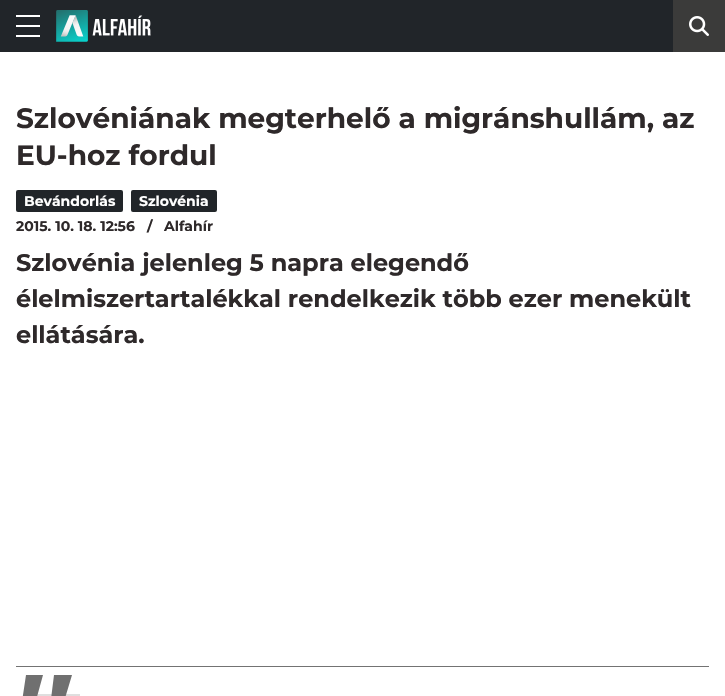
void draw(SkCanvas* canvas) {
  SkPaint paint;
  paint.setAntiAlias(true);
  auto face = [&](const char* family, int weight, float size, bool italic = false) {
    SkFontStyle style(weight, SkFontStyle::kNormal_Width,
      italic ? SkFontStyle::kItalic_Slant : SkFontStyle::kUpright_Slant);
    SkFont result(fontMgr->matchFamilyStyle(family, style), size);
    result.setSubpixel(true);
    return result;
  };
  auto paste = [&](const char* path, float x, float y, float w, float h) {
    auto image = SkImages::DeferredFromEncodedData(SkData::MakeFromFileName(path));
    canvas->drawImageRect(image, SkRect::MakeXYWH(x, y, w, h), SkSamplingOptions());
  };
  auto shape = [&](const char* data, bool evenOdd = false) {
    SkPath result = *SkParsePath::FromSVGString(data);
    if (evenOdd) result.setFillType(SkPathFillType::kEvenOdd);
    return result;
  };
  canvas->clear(0xffffffff);
  {
    const struct { float x, y, w, h; SkColor color; } items[] = {
      {0, 0, 673, 52, 0xff212529},
      {16, 15, 24, 2, 0xffffffff},
      {16, 25, 24, 2, 0xffffffff},
      {16, 35, 24, 2, 0xffffffff},
    };
    for (auto [x, y, w, h, color] : items) {
      paint.setColor(color);
      canvas->drawRect(SkRect::MakeXYWH(x, y, w, h), paint);
    }
  }
  paste("img/1.png", 56, 10, 95, 32);
  paint.setColor(0xff3b3b3a);
  canvas->drawRect(SkRect::MakeXYWH(673, 0, 52, 52), paint);
  paste("img/2.png", 689, 16, 20, 20);
  paint.setColor(0xff212529);
  canvas->drawRoundRect(SkRect::MakeXYWH(16, 190, 107, 22), 2, 2, paint);
  canvas->drawRoundRect(SkRect::MakeXYWH(131, 190, 86, 22), 2, 2, paint);
  paint.setColor(0xffdfdfdf);
  canvas->drawRect(SkRect::MakeXYWH(30, 694, 50, 2), paint);
  paint.setColor(0xff707070);
  canvas->drawPath(shape("M43 675L32 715H20L26 675ZM72 675L60 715H49L54 675Z"), paint);
  paint.setColor(0xff737373);
  canvas->drawRect(SkRect::MakeXYWH(16, 666, 693, 1), paint);
  auto f0 = face("Montserrat", 700, 28);
  paint.setColor(0xff2e292a);
  canvas->drawString("Szlovéniának megterhelő a migránshullám, az", 16, 128, f0, paint);
  canvas->drawString("EU-hoz fordul", 16, 165, f0, paint);
  auto f1 = face("Montserrat", 700, 14);
  paint.setColor(0xffffffff);
  canvas->drawString("Bevándorlás", 24, 206, f1, paint);
  canvas->drawString("Szlovénia", 139, 206, f1, paint);
  paint.setColor(0xff2e292a);
  {
    const struct { const char* s; float x, y; } items[] = {
      {"2015. 10. 18. 12:56", 16, 231},
      {"/", 147, 231},
      {"Alfahír", 164, 231},
    };
    for (auto [s, x, y] : items) {
      canvas->drawString(s, x, y, f1, paint);
    }
  }
  auto f2 = face("Montserrat", 700, 24);
  {
    const struct { const char* s; float x, y; } items[] = {
      {"Szlovénia jelenleg 5 napra elegendő", 16, 271},
      {"élelmiszertartalékkal rendelkezik több ezer menekült", 16, 307},
      {"ellátására.", 16, 343},
    };
    for (auto [s, x, y] : items) {
      canvas->drawString(s, x, y, f2, paint);
    }
  }
}
